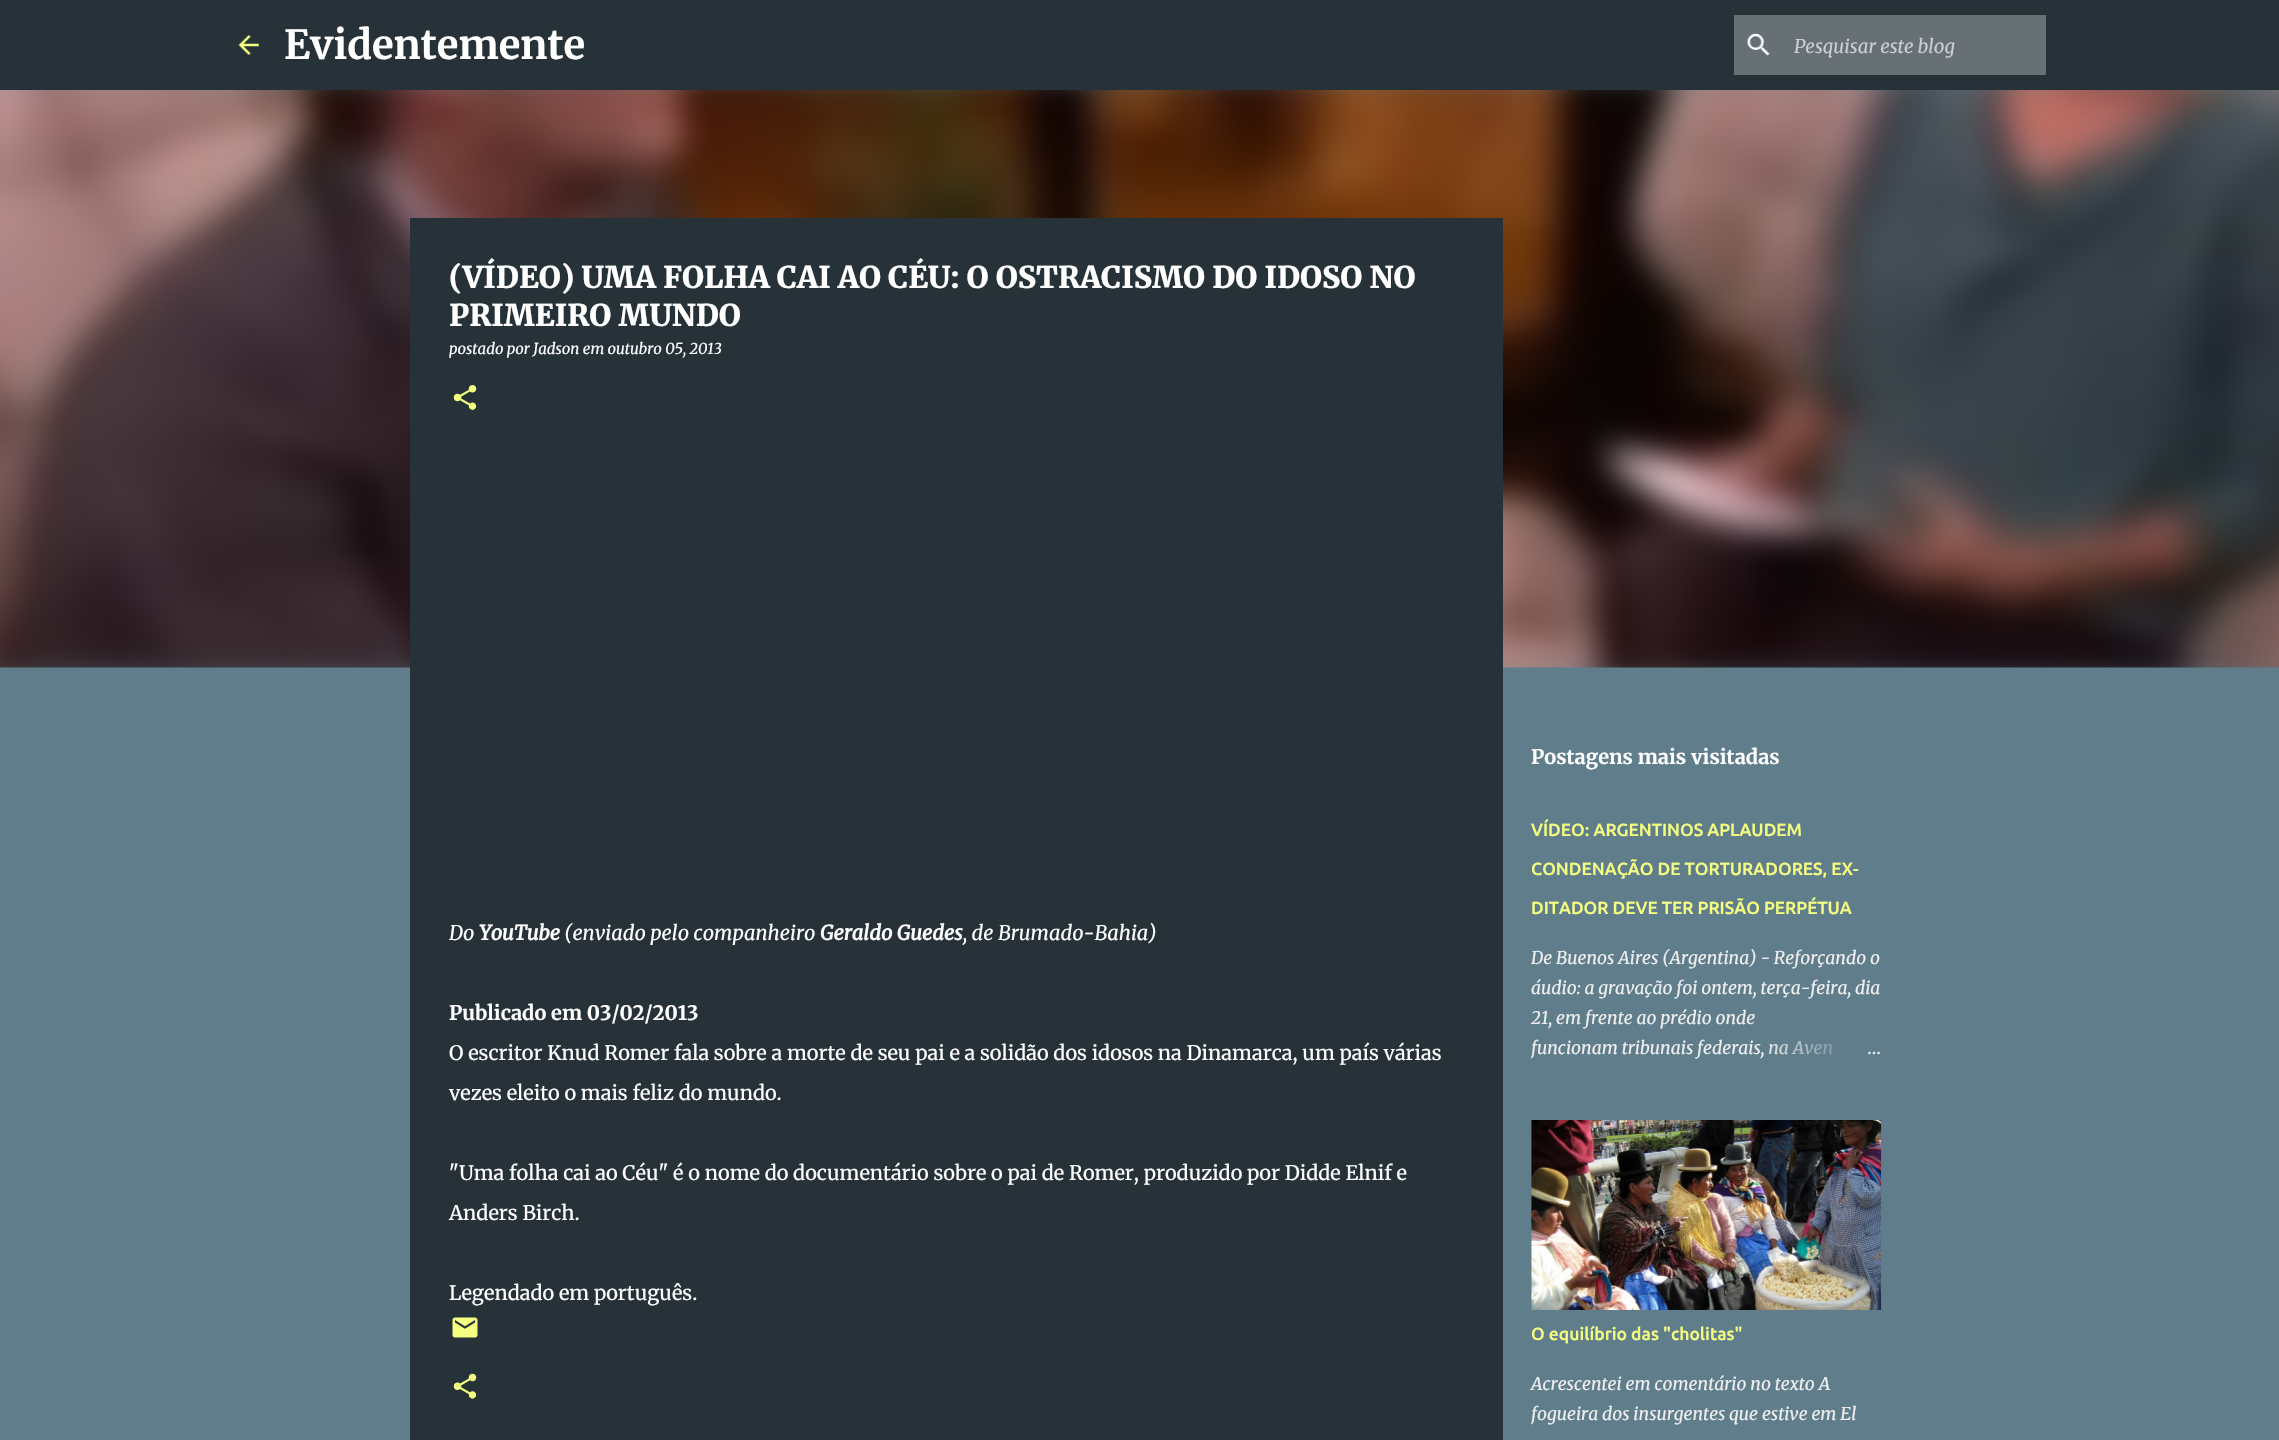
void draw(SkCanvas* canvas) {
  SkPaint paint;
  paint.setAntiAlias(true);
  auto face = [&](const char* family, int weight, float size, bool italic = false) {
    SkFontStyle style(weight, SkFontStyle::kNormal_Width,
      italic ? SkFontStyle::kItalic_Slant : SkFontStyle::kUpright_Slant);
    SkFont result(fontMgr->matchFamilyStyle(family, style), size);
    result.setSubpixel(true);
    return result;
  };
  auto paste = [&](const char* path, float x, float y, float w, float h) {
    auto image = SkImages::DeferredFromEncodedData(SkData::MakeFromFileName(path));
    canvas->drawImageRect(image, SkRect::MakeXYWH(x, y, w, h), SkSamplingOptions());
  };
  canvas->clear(0xff607d8b);
  paint.setColor(0xff263238);
  canvas->drawRect(SkRect::MakeXYWH(0, 0, 2279, 90), paint);
  paste("img/1.png", 238, 35, 21, 20);
  paint.setColor(0xff677074);
  canvas->drawRect(SkRect::MakeXYWH(1734, 15, 312, 60), paint);
  paste("img/2.png", 1746, 33, 24, 23);
  paste("img/7.png", 0, 90, 2279, 578);
  paint.setColor(0xff263238);
  canvas->drawRect(SkRect::MakeXYWH(410, 218, 1093, 1222), paint);
  paste("img/3.png", 453, 385, 24, 25);
  paste("img/4.png", 452, 1317, 26, 21);
  paste("img/5.png", 453, 1373, 24, 26);
  paste("img/6.png", 1531, 1120, 351, 190);
  auto f0 = face("Merriweather", 700, 40);
  paint.setColor(0xffffffff);
  canvas->drawString("Evidentemente", 284, 59, f0, paint);
  auto f1 = face("Merriweather", 400, 18.75f, true);
  paint.setColor(0xffcbced0);
  canvas->drawString("Pesquisar este blog", 1794, 53, f1, paint);
  auto f2 = face("Merriweather", 900, 30);
  paint.setColor(0xffffffff);
  canvas->drawString("(VÍDEO) UMA FOLHA CAI AO CÉU: O OSTRACISMO DO IDOSO NO", 449, 288, f2, paint);
  canvas->drawString("PRIMEIRO MUNDO", 449, 326, f2, paint);
  auto f3 = face("Merriweather", 400, 15, true);
  canvas->drawString("postado por Jadson em outubro 05, 2013", 449, 354, f3, paint);
  auto f4 = face("Merriweather", 400, 20, true);
  canvas->drawString("Do", 449, 940, f4, paint);
  auto f5 = face("Merriweather", 700, 20, true);
  canvas->drawString("YouTube", 479, 940, f5, paint);
  canvas->drawString("(enviado pelo companheiro", 564, 940, f4, paint);
  canvas->drawString("Geraldo Guedes", 820, 940, f5, paint);
  canvas->drawString(", de Brumado-Bahia)", 963, 940, f4, paint);
  auto f6 = face("Merriweather", 700, 20);
  canvas->drawString("Publicado em 03/02/2013", 449, 1020, f6, paint);
  auto f7 = face("Merriweather", 400, 20);
  {
    const struct { const char* s; float x, y; } items[] = {
      {"O escritor Knud Romer fala sobre a morte de seu pai e a solidão dos idosos na Dinamarca, um país várias", 449, 1060},
      {"vezes eleito o mais feliz do mundo.", 449, 1100},
      {"\"Uma folha cai ao Céu\" é o nome do documentário sobre o pai de Romer, produzido por Didde Elnif e", 449, 1180},
      {"Anders Birch.", 449, 1220},
      {"Legendado em português.", 449, 1300},
    };
    for (auto [s, x, y] : items) {
      canvas->drawString(s, x, y, f7, paint);
    }
  }
  canvas->drawString("Postagens mais visitadas", 1531, 764, f6, paint);
  auto f8 = face("Ubuntu", 500, 17.5f);
  paint.setColor(0xfff4ff81);
  {
    const struct { const char* s; float x, y; } items[] = {
      {"VÍDEO: ARGENTINOS APLAUDEM", 1531, 836},
      {"CONDENAÇÃO DE TORTURADORES, EX-", 1531, 875},
      {"DITADOR DEVE TER PRISÃO PERPÉTUA", 1531, 914},
    };
    for (auto [s, x, y] : items) {
      canvas->drawString(s, x, y, f8, paint);
    }
  }
  auto f9 = face("Merriweather", 400, 17.5f, true);
  paint.setColor(0xffeeeeee);
  {
    const struct { const char* s; float x, y; } items[] = {
      {"De Buenos Aires (Argentina) - Reforçando o", 1531, 964},
      {"áudio: a gravação foi ontem, terça-feira, dia", 1531, 994},
      {"21, em frente ao prédio onde", 1531, 1024},
    };
    for (auto [s, x, y] : items) {
      canvas->drawString(s, x, y, f9, paint);
    }
  }
  canvas->save();
  canvas->clipRect(SkRect::MakeXYWH(1531, 943, 350, 120));
  canvas->drawString("funcionam tribunais federais, na Aven", 1531, 1054, f9, paint);
  canvas->restore();
  {
    const SkColor colors[] = {0xff607d8b, 0xff607d8b, 0x00607d8b};
    const float stops[] = {0, 0.2f, 1};
    const SkPoint ends[] = {{1881, 1048}, {1761, 1048}};
    paint.setShader(SkGradientShader::MakeLinear(ends, colors, stops, 3, SkTileMode::kClamp));
    paint.setAlpha(255);
  }
  canvas->drawRect(SkRect::MakeXYWH(1769, 1040, 63, 15), paint);
  auto f10 = face("Merriweather", 400, 17.5f);
  paint.setShader(nullptr);
  paint.setColor(0xffeeeeee);
  canvas->drawString("…", 1867, 1054, f10, paint);
  paint.setColor(0xfff4ff81);
  canvas->drawString("O equilíbrio das \"cholitas\"", 1531, 1340, f8, paint);
  paint.setColor(0xffeeeeee);
  canvas->drawString("Acrescentei em comentário no texto A", 1531, 1390, f9, paint);
  canvas->save();
  canvas->clipRect(SkRect::MakeXYWH(1531, 1369, 350, 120));
  canvas->drawString("fogueira dos insurgentes", 1531, 1420, f9, paint);
  canvas->restore();
  canvas->drawString("que estive em El", 1729, 1420, f9, paint);
}
